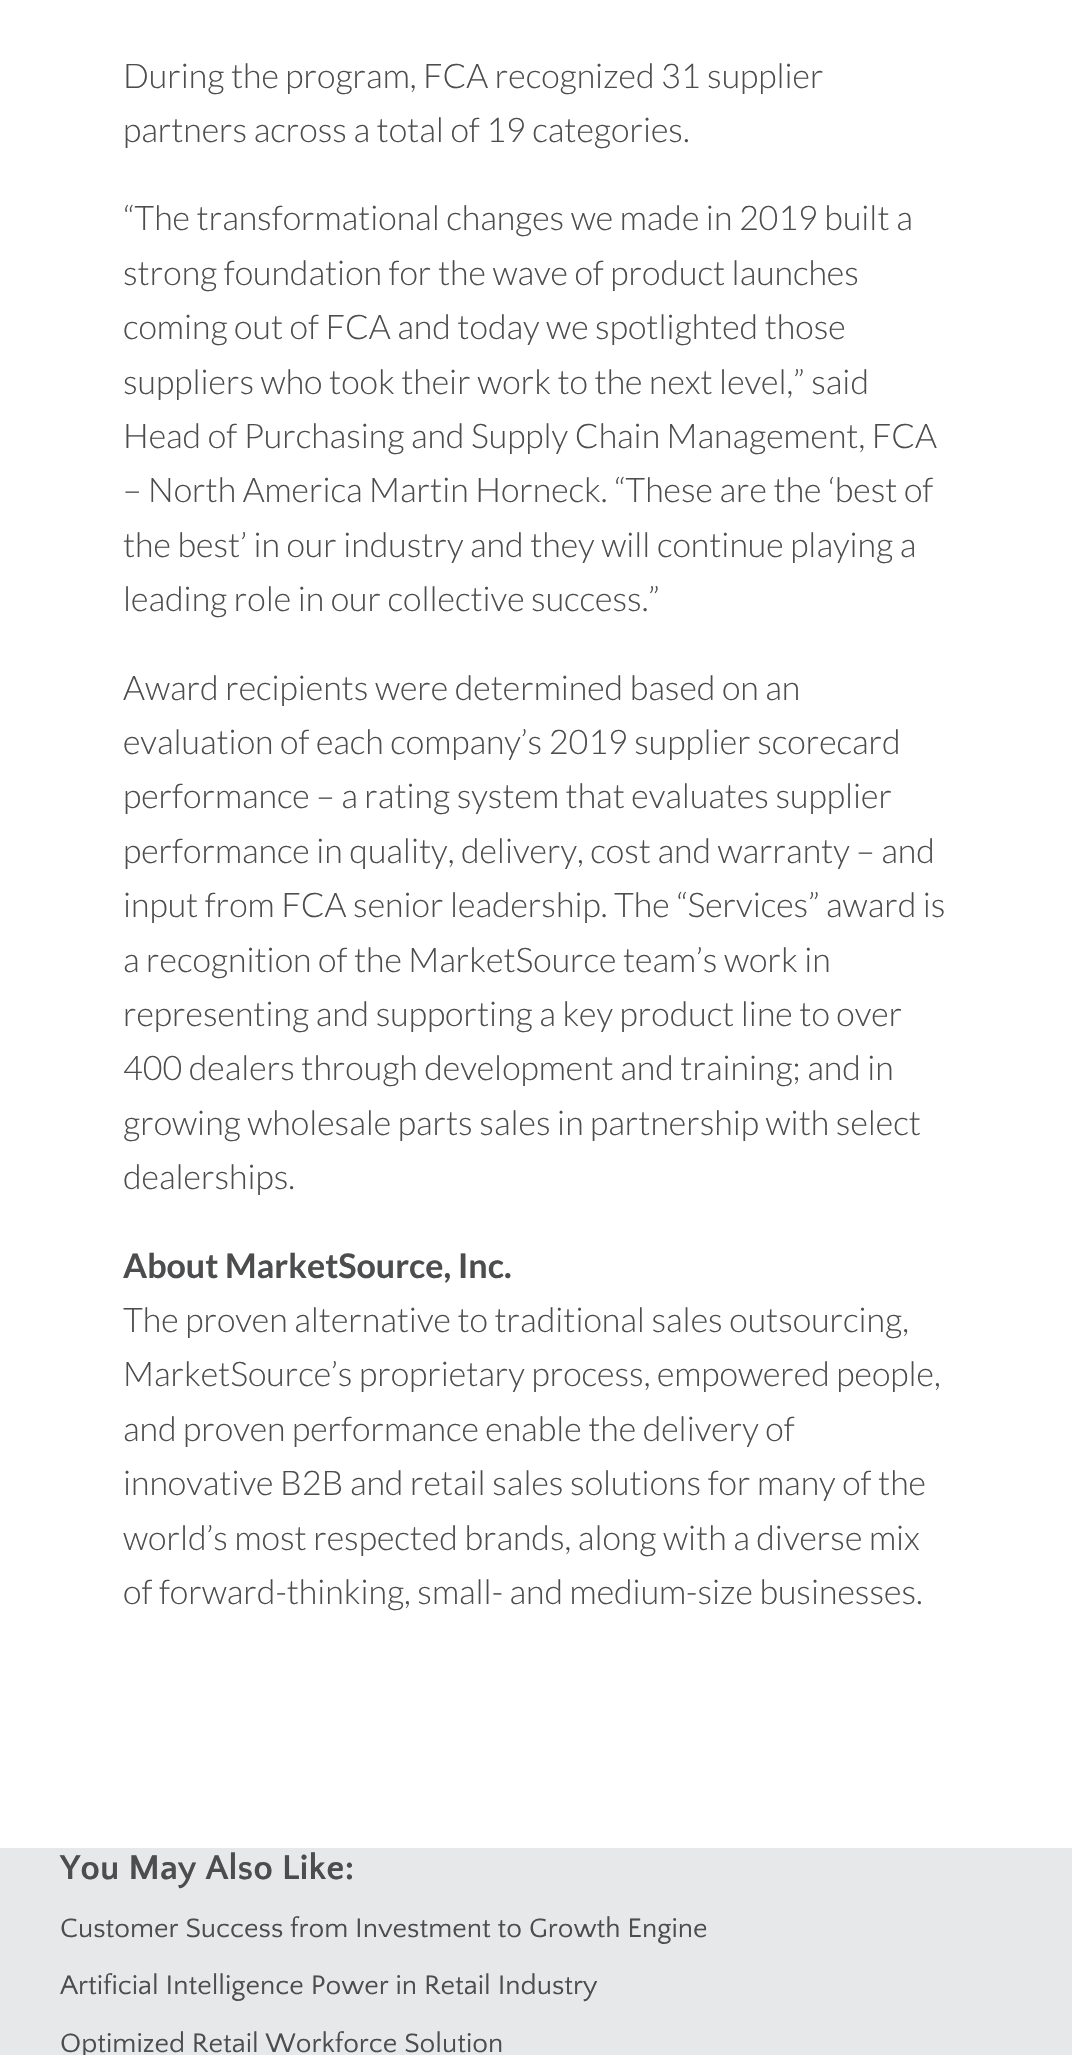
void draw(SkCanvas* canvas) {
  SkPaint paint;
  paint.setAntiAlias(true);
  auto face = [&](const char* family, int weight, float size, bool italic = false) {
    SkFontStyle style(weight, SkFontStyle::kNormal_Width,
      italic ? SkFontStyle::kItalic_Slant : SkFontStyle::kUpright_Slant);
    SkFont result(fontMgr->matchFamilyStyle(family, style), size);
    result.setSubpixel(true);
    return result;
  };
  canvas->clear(0xffffffff);
  paint.setColor(0xffe6e8e9);
  canvas->drawRect(SkRect::MakeXYWH(0, 1848, 1072, 207), paint);
  auto f0 = face("Lato", 300, 34);
  paint.setColor(0xff4c4d4e);
  {
    const struct { const char* s; float x, y; } items[] = {
      {"During the program, FCA recognized 31 supplier", 123, 88},
      {"partners across a total of 19 categories.", 123, 142},
      {"“The transformational changes we made in 2019 built a", 123, 230},
      {"strong foundation for the wave of product launches", 123, 285},
      {"coming out of FCA and today we spotlighted those", 123, 339},
      {"suppliers who took their work to the next level,” said", 123, 394},
      {"Head of Purchasing and Supply Chain Management, FCA", 123, 448},
      {"– North America Martin Horneck. “These are the ‘best of", 123, 502},
      {"the best’ in our industry and they will continue playing a", 123, 557},
      {"leading role in our collective success.”", 123, 611},
      {"Award recipients were determined based on an", 123, 700},
      {"evaluation of each company’s 2019 supplier scorecard", 123, 754},
      {"performance – a rating system that evaluates supplier", 123, 808},
      {"performance in quality, delivery, cost and warranty – and", 123, 863},
      {"input from FCA senior leadership. The “Services” award is", 123, 917},
      {"a recognition of the MarketSource team’s work in", 123, 972},
      {"representing and supporting a key product line to over", 123, 1026},
      {"400 dealers through development and training; and in", 123, 1080},
      {"growing wholesale parts sales in partnership with select", 123, 1135},
      {"dealerships.", 123, 1189},
    };
    for (auto [s, x, y] : items) {
      canvas->drawString(s, x, y, f0, paint);
    }
  }
  auto f1 = face("Lato", 700, 34);
  canvas->drawString("About MarketSource, Inc.", 123, 1278, f1, paint);
  {
    const struct { const char* s; float x, y; } items[] = {
      {"The proven alternative to traditional sales outsourcing,", 123, 1332},
      {"MarketSource’s proprietary process, empowered people,", 123, 1386},
      {"and proven performance enable the delivery of", 123, 1441},
      {"innovative B2B and retail sales solutions for many of the", 123, 1495},
      {"world’s most respected brands, along with a diverse mix", 123, 1550},
      {"of forward-thinking, small- and medium-size businesses.", 123, 1604},
    };
    for (auto [s, x, y] : items) {
      canvas->drawString(s, x, y, f0, paint);
    }
  }
  auto f2 = face("Quattrocento Sans", 700, 36);
  canvas->drawString("You May Also Like:", 60, 1879, f2, paint);
  auto f3 = face("Quattrocento Sans", 400, 28);
  {
    const struct { const char* s; float x, y; } items[] = {
      {"Customer Success from Investment to Growth Engine", 60, 1937},
      {"Artificial Intelligence Power in Retail Industry", 60, 1994},
      {"Optimized Retail Workforce Solution", 60, 2052},
    };
    for (auto [s, x, y] : items) {
      canvas->drawString(s, x, y, f3, paint);
    }
  }
}
